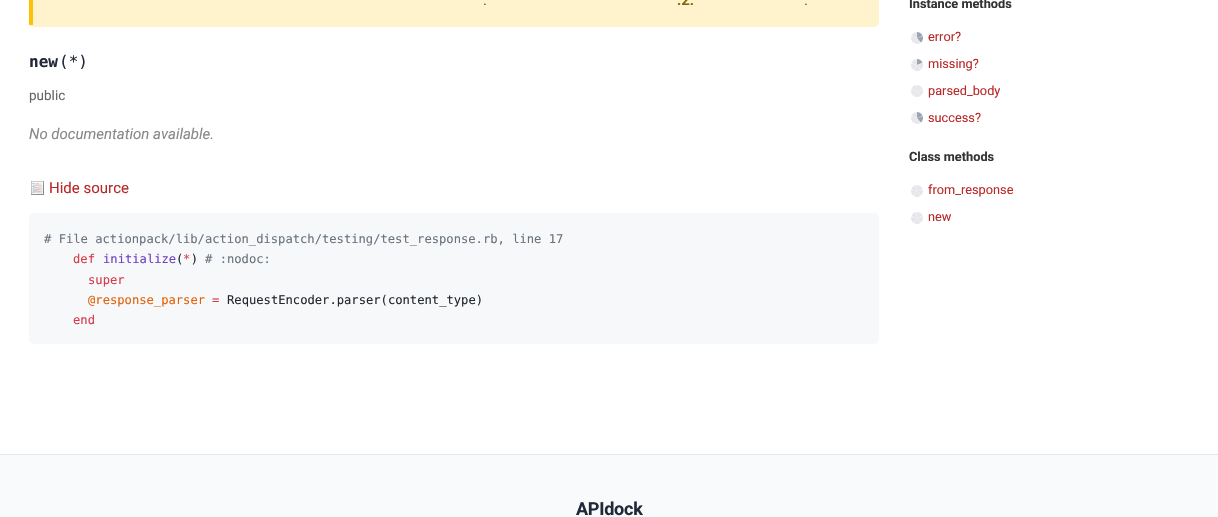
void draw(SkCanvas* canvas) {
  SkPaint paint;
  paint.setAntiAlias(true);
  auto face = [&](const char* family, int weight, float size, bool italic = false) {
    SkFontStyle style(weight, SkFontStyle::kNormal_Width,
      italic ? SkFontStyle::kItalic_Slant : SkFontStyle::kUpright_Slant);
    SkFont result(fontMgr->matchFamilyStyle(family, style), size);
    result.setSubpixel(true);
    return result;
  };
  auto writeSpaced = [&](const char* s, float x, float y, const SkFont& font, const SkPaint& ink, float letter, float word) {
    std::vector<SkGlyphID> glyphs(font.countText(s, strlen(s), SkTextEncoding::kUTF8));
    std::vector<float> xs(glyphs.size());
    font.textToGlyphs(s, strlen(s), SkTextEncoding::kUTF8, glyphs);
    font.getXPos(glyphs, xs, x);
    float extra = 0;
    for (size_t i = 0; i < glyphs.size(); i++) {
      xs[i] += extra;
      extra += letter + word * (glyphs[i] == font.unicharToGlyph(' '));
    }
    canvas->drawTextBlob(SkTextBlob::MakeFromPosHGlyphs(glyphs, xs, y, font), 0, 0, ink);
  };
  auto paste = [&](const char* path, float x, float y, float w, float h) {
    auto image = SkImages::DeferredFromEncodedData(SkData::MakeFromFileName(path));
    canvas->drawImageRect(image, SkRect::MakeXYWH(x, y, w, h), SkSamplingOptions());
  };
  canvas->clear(0xffffffff);
  paint.setColor(0xfffff3cd);
  canvas->drawRoundRect(SkRect::MakeXYWH(29, -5, 850, 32), 5, 5, paint);
  paint.setColor(0xffffc107);
  canvas->drawRect(SkRect::MakeXYWH(29, 0, 4, 25), paint);
  paste("img/1.png", 31, 181, 13, 14);
  paint.setColor(0xfff6f8fa);
  canvas->drawRoundRect(SkRect::MakeXYWH(29, 213, 850, 131), 5, 5, paint);
  paste("img/2.png", 911, 32, 12, 12);
  paste("img/3.png", 911, 59, 12, 12);
  paste("img/4.png", 911, 85, 12, 12);
  paste("img/2.png", 911, 112, 12, 12);
  paste("img/4.png", 911, 185, 12, 12);
  paste("img/4.png", 911, 212, 12, 12);
  paint.setColor(0xfff9fafb);
  canvas->drawRect(SkRect::MakeXYWH(0, 455, 1218, 62), paint);
  paint.setColor(0xffe5e7eb);
  canvas->drawRect(SkRect::MakeXYWH(0, 454, 1218, 1), paint);
  auto f0 = face("Roboto", 400, 15);
  paint.setColor(0xff856404);
  canvas->drawString(".", 483, 5, f0, paint);
  auto f1 = face("Roboto", 600, 15);
  canvas->drawString(".2.", 677, 5, f1, paint);
  canvas->drawString(".", 804, 5, f0, paint);
  auto f2 = face("DejaVu Sans Mono", 700, 16);
  paint.setColor(0xff1f2937);
  canvas->drawString("new", 29, 67, f2, paint);
  auto f3 = face("DejaVu Sans Mono", 400, 16);
  canvas->drawString("(*)", 59, 67, f3, paint);
  auto f4 = face("Roboto", 400, 13.5f);
  paint.setColor(0xff666666);
  canvas->drawString("public", 29, 100, f4, paint);
  auto f5 = face("Roboto", 400, 15, true);
  paint.setColor(0xff888888);
  canvas->drawString("No documentation available.", 29, 139, f5, paint);
  paint.setColor(0xffba2727);
  canvas->drawString("Hide source", 49, 193, f0, paint);
  auto f6 = face("DejaVu Sans Mono", 400, 12.15f);
  paint.setColor(0xff6a737d);
  canvas->drawString("# File actionpack/lib/action_dispatch/testing/test_response.rb, line 17", 44, 243, f6, paint);
  paint.setColor(0xffd73a49);
  canvas->drawString("def", 73, 263, f6, paint);
  paint.setColor(0xff6f42c1);
  canvas->drawString("initialize", 103, 263, f6, paint);
  paint.setColor(0xff24292e);
  canvas->drawString("( )", 176, 263, f6, paint);
  paint.setColor(0xff6a737d);
  canvas->drawString("# :nodoc:", 205, 263, f6, paint);
  paint.setColor(0xffd73a49);
  canvas->drawString("*", 183, 263, f6, paint);
  canvas->drawString("super", 88, 284, f6, paint);
  paint.setColor(0xffe36209);
  canvas->drawString("@response_parser", 88, 304, f6, paint);
  paint.setColor(0xffd73a49);
  canvas->drawString("=", 212, 304, f6, paint);
  paint.setColor(0xff24292e);
  canvas->drawString("RequestEncoder.parser(content_type)", 227, 304, f6, paint);
  paint.setColor(0xffd73a49);
  canvas->drawString("end", 73, 324, f6, paint);
  auto f7 = face("Roboto", 700, 12.75f);
  paint.setColor(0xff333333);
  canvas->drawString("Instance methods", 909, 8, f7, paint);
  auto f8 = face("Roboto", 400, 12.75f);
  paint.setColor(0xffba2727);
  {
    const struct { const char* s; float x, y; } items[] = {
      {"error?", 928, 41},
      {"missing?", 928, 68},
      {"parsed_body", 928, 95},
      {"success?", 928, 122},
    };
    for (auto [s, x, y] : items) {
      canvas->drawString(s, x, y, f8, paint);
    }
  }
  paint.setColor(0xff333333);
  canvas->drawString("Class methods", 909, 161, f7, paint);
  paint.setColor(0xffba2727);
  canvas->drawString("from_response", 928, 194, f8, paint);
  canvas->drawString("new", 928, 221, f8, paint);
  auto f9 = face("Roboto", 700, 18);
  paint.setColor(0xff1f2937);
  writeSpaced("APIdock", 576, 515, f9, paint, -0.25f, 0);
}
